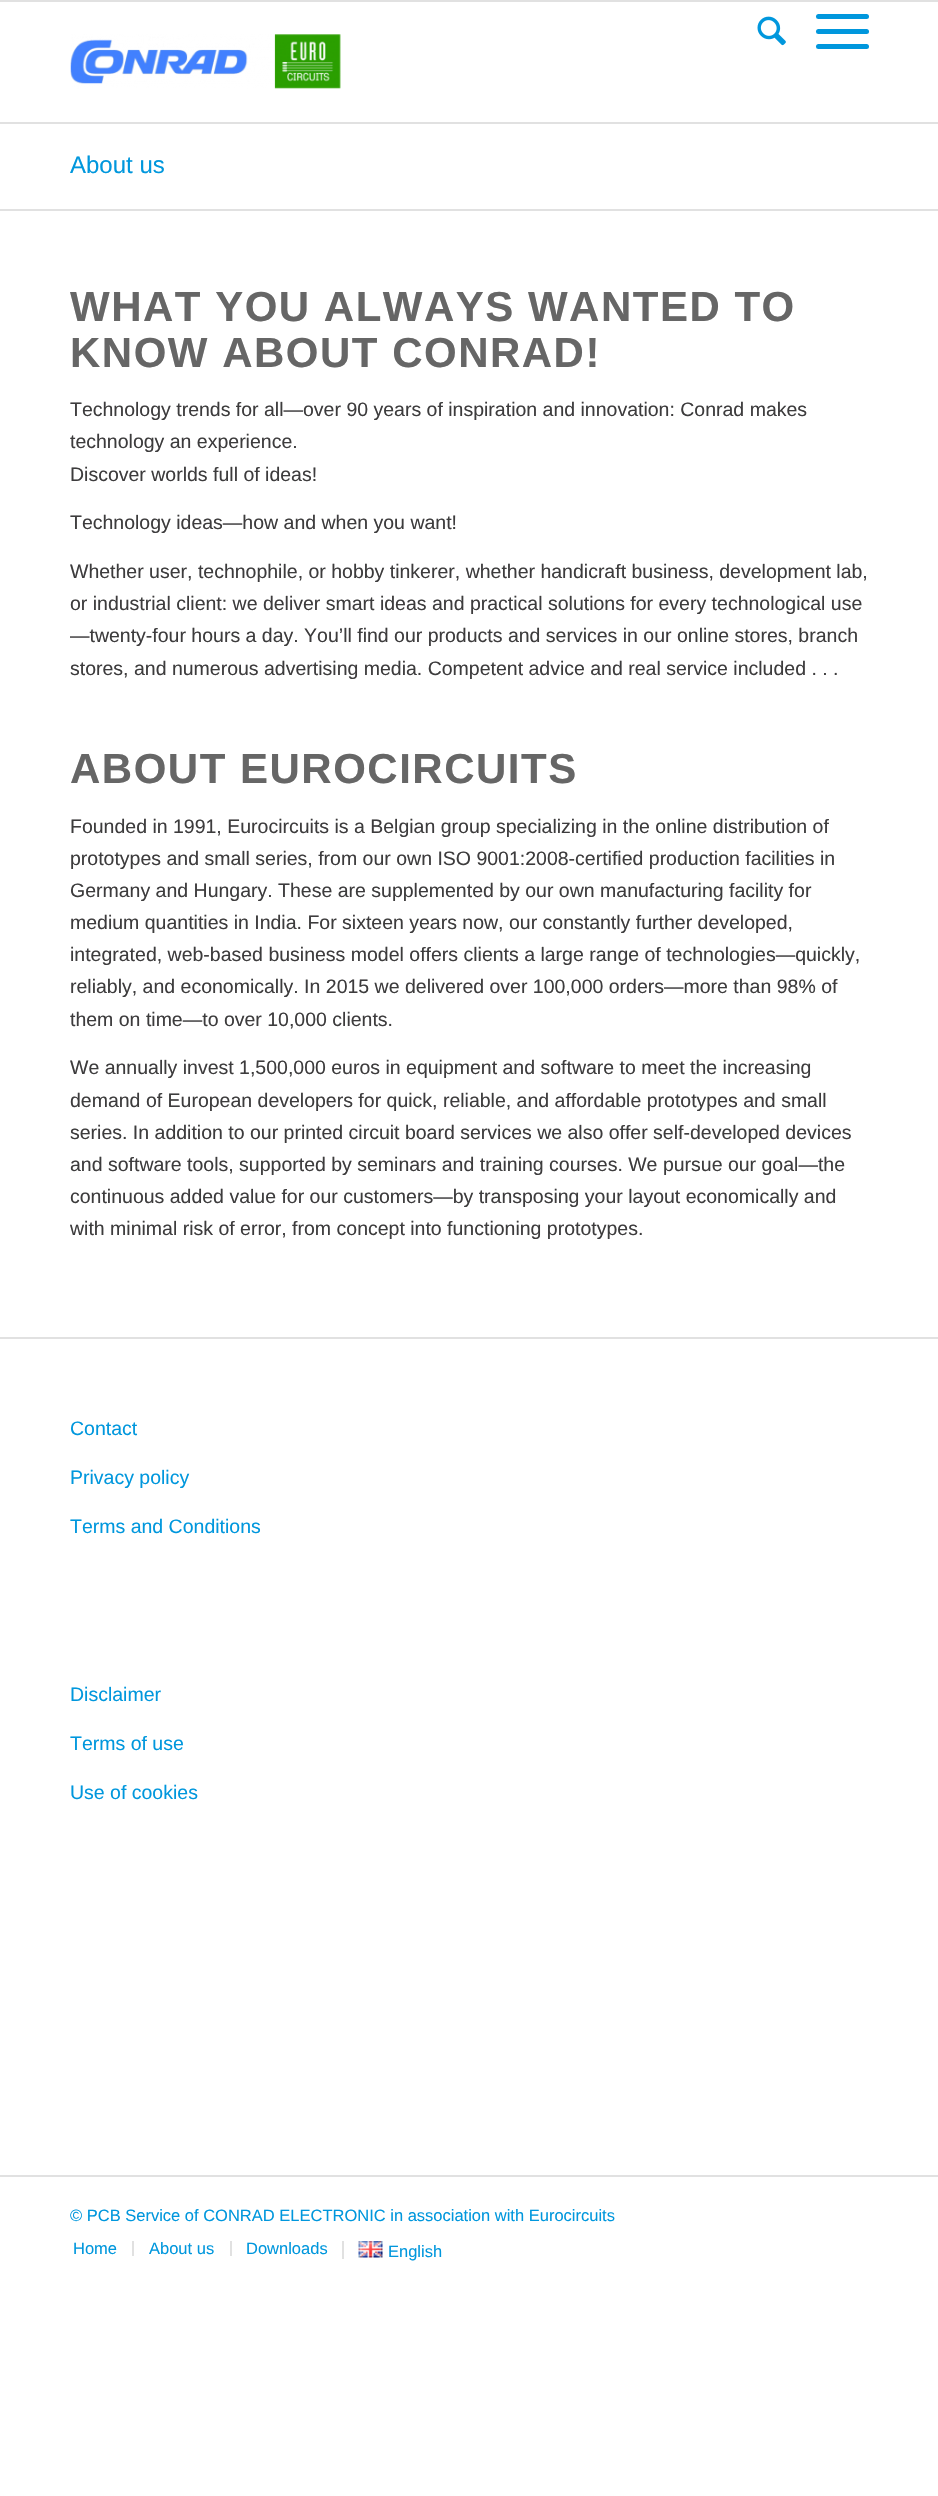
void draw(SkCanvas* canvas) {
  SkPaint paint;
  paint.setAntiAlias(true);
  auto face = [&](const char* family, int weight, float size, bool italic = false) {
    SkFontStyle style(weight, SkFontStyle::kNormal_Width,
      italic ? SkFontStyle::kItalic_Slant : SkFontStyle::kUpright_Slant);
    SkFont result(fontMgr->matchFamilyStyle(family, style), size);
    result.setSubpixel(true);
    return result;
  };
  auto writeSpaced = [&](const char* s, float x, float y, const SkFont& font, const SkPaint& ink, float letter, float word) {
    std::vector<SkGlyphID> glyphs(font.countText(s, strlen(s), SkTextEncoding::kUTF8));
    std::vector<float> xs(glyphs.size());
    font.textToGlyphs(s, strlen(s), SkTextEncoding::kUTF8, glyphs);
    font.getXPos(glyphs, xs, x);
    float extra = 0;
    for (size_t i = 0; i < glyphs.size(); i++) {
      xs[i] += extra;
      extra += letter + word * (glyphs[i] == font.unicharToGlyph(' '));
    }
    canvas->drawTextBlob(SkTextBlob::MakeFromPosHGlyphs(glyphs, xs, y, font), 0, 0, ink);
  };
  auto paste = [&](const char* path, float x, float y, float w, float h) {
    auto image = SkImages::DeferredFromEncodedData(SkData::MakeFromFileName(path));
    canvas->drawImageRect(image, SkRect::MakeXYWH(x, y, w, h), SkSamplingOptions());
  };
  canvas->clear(0xffffffff);
  paint.setColor(0xffe1e1e1);
  canvas->drawRect(SkRect::MakeXYWH(0, 0, 938, 2), paint);
  canvas->drawRect(SkRect::MakeXYWH(0, 122, 938, 2), paint);
  paste("img/1.png", 70, 34, 271, 55);
  paste("img/2.png", 757, 16, 29, 30);
  paint.setColor(0xff0097dd);
  canvas->drawRoundRect(SkRect::MakeXYWH(816, 29, 53, 5), 2.5f, 2.5f, paint);
  canvas->drawRoundRect(SkRect::MakeXYWH(816, 14, 53, 5), 2.5f, 2.5f, paint);
  canvas->drawRoundRect(SkRect::MakeXYWH(816, 44, 53, 5), 2.5f, 2.5f, paint);
  {
    const struct { float x, y, w, h; SkColor color; } items[] = {
      {0, 209, 938, 2, 0xffe1e1e1},
      {0, 1337, 938, 2, 0xffe1e1e1},
      {0, 2175, 938, 2, 0xffe1e1e1},
      {132, 2241, 2, 15, 0xffe1e1e1},
      {230, 2241, 2, 15, 0xffe1e1e1},
      {342, 2241, 2, 18, 0xffe1e1e1},
    };
    for (auto [x, y, w, h, color] : items) {
      paint.setColor(color);
      canvas->drawRect(SkRect::MakeXYWH(x, y, w, h), paint);
    }
  }
  paste("img/3.png", 358, 2241, 25, 17);
  auto f0 = face("Liberation Sans", 400, 24);
  paint.setColor(0xff0097dd);
  canvas->drawString("About us", 70, 173, f0, paint);
  auto f1 = face("Liberation Sans", 700, 42);
  paint.setColor(0xff666666);
  writeSpaced("WHAT YOU ALWAYS WANTED TO", 70, 321, f1, paint, 1.5f, 0);
  writeSpaced("KNOW ABOUT CONRAD!", 70, 367, f1, paint, 1.5f, 0);
  auto f2 = face("Liberation Sans", 400, 19.5f);
  paint.setColor(0xff3d3c3d);
  {
    const struct { const char* s; float x, y; } items[] = {
      {"Technology trends for all—over 90 years of inspiration and innovation: Conrad makes", 70, 416},
      {"technology an experience.", 70, 448},
      {"Discover worlds full of ideas!", 70, 481},
      {"Technology ideas—how and when you want!", 70, 529},
      {"Whether user, technophile, or hobby tinkerer, whether handicraft business, development lab,", 70, 578},
      {"or industrial client: we deliver smart ideas and practical solutions for every technological use", 70, 610},
      {"—twenty-four hours a day. You’ll find our products and services in our online stores, branch", 70, 642},
      {"stores, and numerous advertising media. Competent advice and real service included . . .", 70, 675},
    };
    for (auto [s, x, y] : items) {
      canvas->drawString(s, x, y, f2, paint);
    }
  }
  paint.setColor(0xff666666);
  writeSpaced("ABOUT EUROCIRCUITS", 70, 783, f1, paint, 1.5f, 0);
  paint.setColor(0xff3d3c3d);
  {
    const struct { const char* s; float x, y; } items[] = {
      {"Founded in 1991, Eurocircuits is a Belgian group specializing in the online distribution of", 70, 833},
      {"prototypes and small series, from our own ISO 9001:2008-certified production facilities in", 70, 865},
      {"Germany and Hungary. These are supplemented by our own manufacturing facility for", 70, 897},
      {"medium quantities in India. For sixteen years now, our constantly further developed,", 70, 929},
      {"integrated, web-based business model offers clients a large range of technologies—quickly,", 70, 961},
      {"reliably, and economically. In 2015 we delivered over 100,000 orders—more than 98% of", 70, 993},
      {"them on time—to over 10,000 clients.", 70, 1026},
      {"We annually invest 1,500,000 euros in equipment and software to meet the increasing", 70, 1074},
      {"demand of European developers for quick, reliable, and affordable prototypes and small", 70, 1107},
      {"series. In addition to our printed circuit board services we also offer self-developed devices", 70, 1139},
      {"and software tools, supported by seminars and training courses. We pursue our goal—the", 70, 1171},
      {"continuous added value for our customers—by transposing your layout economically and", 70, 1203},
      {"with minimal risk of error, from concept into functioning prototypes.", 70, 1235},
    };
    for (auto [s, x, y] : items) {
      canvas->drawString(s, x, y, f2, paint);
    }
  }
  paint.setColor(0xff0097dd);
  {
    const struct { const char* s; float x, y; } items[] = {
      {"Contact", 70, 1435},
      {"Privacy policy", 70, 1484},
      {"Terms and Conditions", 70, 1533},
      {"Disclaimer", 70, 1701},
      {"Terms of use", 70, 1750},
      {"Use of cookies", 70, 1799},
    };
    for (auto [s, x, y] : items) {
      canvas->drawString(s, x, y, f2, paint);
    }
  }
  auto f3 = face("Liberation Sans", 400, 16.5f);
  {
    const struct { const char* s; float x, y; } items[] = {
      {"© PCB Service of CONRAD ELECTRONIC in association with Eurocircuits", 70, 2221},
      {"Home", 73, 2254},
      {"About us", 149, 2254},
      {"Downloads", 246, 2254},
      {"English", 388, 2257},
    };
    for (auto [s, x, y] : items) {
      canvas->drawString(s, x, y, f3, paint);
    }
  }
}
